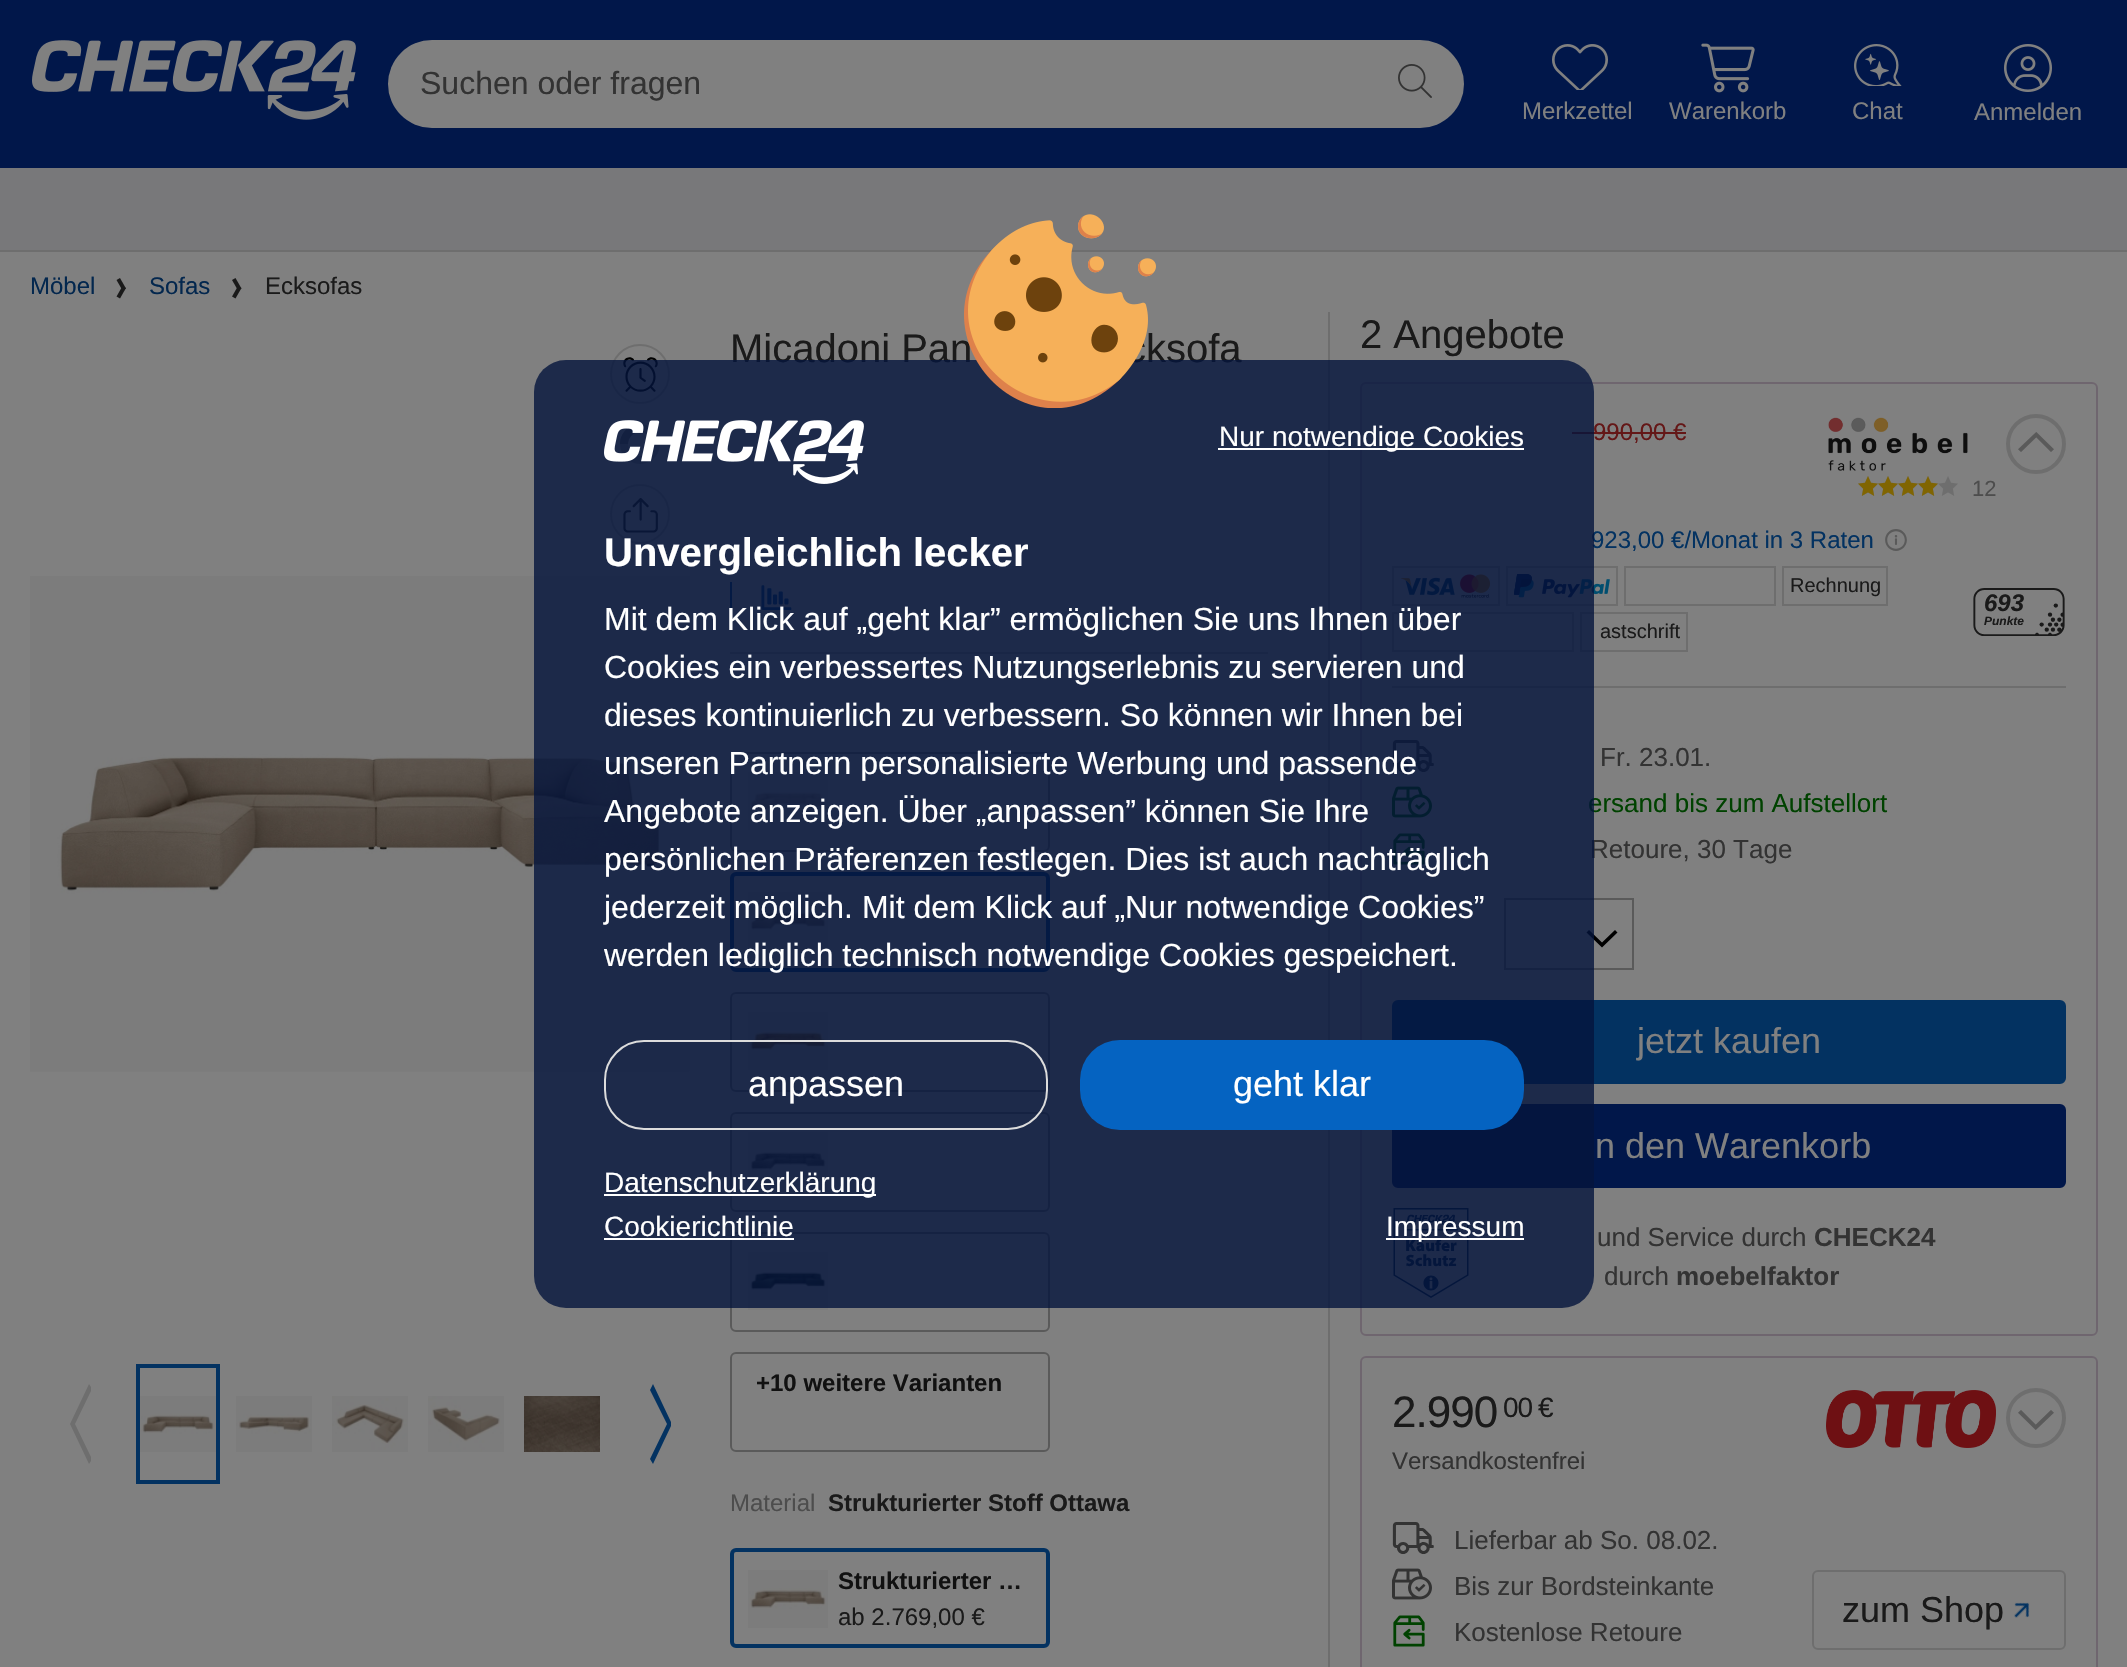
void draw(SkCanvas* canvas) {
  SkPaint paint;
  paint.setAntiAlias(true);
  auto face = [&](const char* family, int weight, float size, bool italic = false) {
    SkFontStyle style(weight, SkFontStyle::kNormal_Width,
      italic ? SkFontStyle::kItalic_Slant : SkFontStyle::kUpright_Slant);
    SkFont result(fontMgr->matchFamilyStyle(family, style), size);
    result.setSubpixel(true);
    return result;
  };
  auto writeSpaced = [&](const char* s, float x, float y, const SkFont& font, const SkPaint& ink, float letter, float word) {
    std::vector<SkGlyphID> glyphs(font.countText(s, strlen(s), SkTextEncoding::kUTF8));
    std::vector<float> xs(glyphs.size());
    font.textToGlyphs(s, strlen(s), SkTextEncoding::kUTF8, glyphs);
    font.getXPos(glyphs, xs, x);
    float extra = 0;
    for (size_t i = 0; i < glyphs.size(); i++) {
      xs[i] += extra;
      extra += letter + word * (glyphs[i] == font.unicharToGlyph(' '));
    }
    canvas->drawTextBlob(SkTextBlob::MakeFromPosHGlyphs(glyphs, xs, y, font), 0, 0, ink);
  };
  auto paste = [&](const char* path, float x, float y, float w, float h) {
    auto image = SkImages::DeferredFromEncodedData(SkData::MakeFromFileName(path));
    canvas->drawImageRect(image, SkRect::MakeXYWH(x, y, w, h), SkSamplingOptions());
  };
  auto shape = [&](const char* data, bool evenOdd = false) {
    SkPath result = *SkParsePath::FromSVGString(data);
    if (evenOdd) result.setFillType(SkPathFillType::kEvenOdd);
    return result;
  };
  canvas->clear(0xff01174a);
  paste("img/1.png", 32, 40, 324, 80);
  paint.setColor(0xff808080);
  canvas->drawRoundRect(SkRect::MakeXYWH(388, 40, 1076, 88), 44, 44, paint);
  paste("img/2.png", 1398, 64, 34, 34);
  paste("img/3.png", 1552, 44, 56, 46);
  paste("img/4.png", 1701, 43, 54, 50);
  paste("img/5.png", 1854, 44, 48, 42);
  paste("img/6.png", 2004, 44, 48, 48);
  {
    const struct { float x, y, w, h; SkColor color; } items[] = {
      {0, 168, 2127, 82, 0xff78787a},
      {0, 250, 2127, 2, 0xff6e6e6e},
      {0, 252, 2127, 1415, 0xff808080},
    };
    for (auto [x, y, w, h, color] : items) {
      paint.setColor(color);
      canvas->drawRect(SkRect::MakeXYWH(x, y, w, h), paint);
    }
  }
  paint.setColor(0xff1a1a1a);
  canvas->drawPath(shape("M120 278L126 288.5L122.5 290.5L116.5 280Z"), paint);
  canvas->drawPath(shape("M116.5 296.5L122.5 286L126 288L120 298.5Z"), paint);
  canvas->drawPath(shape("M235.5 278L241.5 288.5L238 290.5L232 280Z"), paint);
  canvas->drawPath(shape("M232 296.5L238 286L241.5 288L235.5 298.5Z"), paint);
  paste("img/9.png", 30, 576, 660, 496);
  paint.setColor(0xff6e6e6e);
  canvas->drawPath(shape("M75 1424L91 1457V1461L89 1464L70 1424L89 1384L91 1387V1391Z"), paint);
  paint.setStroke(true);
  paint.setStrokeWidth(4);
  paint.setColor(0xff033261);
  canvas->drawRect(SkRect::MakeXYWH(138, 1366, 80, 116), paint);
  paste("img/10.png", 140, 1396, 76, 56);
  paste("img/11.png", 236, 1396, 76, 56);
  paste("img/12.png", 332, 1396, 76, 56);
  paste("img/13.png", 428, 1396, 76, 56);
  paste("img/14.png", 524, 1396, 76, 56);
  paint.setStroke(false);
  canvas->drawPath(shape("M667 1424L650 1390L653 1384L671 1422V1426L653 1464L650 1459Z"), paint);
  paint.setStroke(true);
  paint.setStrokeWidth(2);
  paint.setColor(0xff6e6e6e);
  canvas->drawCircle(640, 374, 29, paint);
  paste("img/15.png", 623, 357, 35, 35);
  paste("img/16.png", 620, 424, 40, 40);
  canvas->drawCircle(640, 514, 29, paint);
  paste("img/17.png", 623, 498, 35, 35);
  paint.setStroke(false);
  canvas->drawRect(SkRect::MakeXYWH(730, 652, 538, 2), paint);
  paint.setColor(0xff033261);
  canvas->drawRect(SkRect::MakeXYWH(730, 582, 2, 32), paint);
  paste("img/18.png", 761, 585, 31, 25);
  paint.setStroke(true);
  paint.setColor(0xff5a5a5a);
  canvas->drawRoundRect(SkRect::MakeXYWH(731, 753, 318, 98), 5, 5, paint);
  paste("img/19.png", 748, 772, 80, 58);
  paint.setStrokeWidth(4);
  paint.setColor(0xff033261);
  canvas->drawRoundRect(SkRect::MakeXYWH(732, 874, 316, 96), 4, 4, paint);
  paste("img/20.png", 748, 892, 80, 58);
  paint.setStrokeWidth(2);
  paint.setColor(0xff5a5a5a);
  canvas->drawRoundRect(SkRect::MakeXYWH(731, 993, 318, 98), 5, 5, paint);
  paste("img/21.png", 748, 1012, 80, 58);
  canvas->drawRoundRect(SkRect::MakeXYWH(731, 1113, 318, 98), 5, 5, paint);
  paste("img/22.png", 748, 1132, 80, 58);
  canvas->drawRoundRect(SkRect::MakeXYWH(731, 1233, 318, 98), 5, 5, paint);
  paste("img/23.png", 748, 1252, 80, 58);
  canvas->drawRoundRect(SkRect::MakeXYWH(731, 1353, 318, 98), 5, 5, paint);
  paint.setStrokeWidth(4);
  paint.setColor(0xff033261);
  canvas->drawRoundRect(SkRect::MakeXYWH(732, 1550, 316, 96), 4, 4, paint);
  paste("img/20.png", 748, 1570, 80, 58);
  paint.setStroke(false);
  paint.setColor(0xff6e6e6e);
  canvas->drawRect(SkRect::MakeXYWH(1328, 312, 2, 1355), paint);
  paint.setStroke(true);
  paint.setStrokeWidth(2);
  paint.setColor(0xff6f666f);
  canvas->drawRoundRect(SkRect::MakeXYWH(1361, 383, 736, 952), 5, 5, paint);
  paint.setStroke(false);
  paint.setColor(0xff6e6e6e);
  canvas->drawRect(SkRect::MakeXYWH(1392, 686, 674, 2), paint);
  paint.setColor(0xff641717);
  canvas->drawRect(SkRect::MakeXYWH(1572, 432, 114, 2), paint);
  paint.setStroke(true);
  paint.setStrokeWidth(4);
  paint.setColor(0xff6e6e6e);
  canvas->drawCircle(2036, 444, 28, paint);
  paste("img/24.png", 2018, 432, 36, 20);
  paste("img/25.png", 1828, 417, 140, 54);
  paste("img/26.png", 1858, 476, 100, 20);
  paste("img/27.png", 1858, 476, 80, 20);
  paste("img/28.png", 1885, 529, 22, 22);
  paint.setStrokeWidth(2);
  canvas->drawRect(SkRect::MakeXYWH(1393, 567, 106, 38), paint);
  paste("img/29.png", 1401, 574, 90, 24);
  canvas->drawRect(SkRect::MakeXYWH(1507, 567, 110, 38), paint);
  paste("img/30.png", 1514, 574, 96, 24);
  canvas->drawRect(SkRect::MakeXYWH(1625, 567, 150, 38), paint);
  canvas->drawRect(SkRect::MakeXYWH(1783, 567, 104, 38), paint);
  canvas->drawRect(SkRect::MakeXYWH(1393, 613, 180, 38), paint);
  canvas->drawRect(SkRect::MakeXYWH(1581, 613, 106, 38), paint);
  paste("img/31.png", 1973, 588, 92, 48);
  paste("img/32.png", 1392, 740, 42, 32);
  paste("img/33.png", 1392, 786, 40, 32);
  paste("img/34.png", 1393, 833, 32, 32);
  paint.setStroke(false);
  paint.setColor(0xff000000);
  canvas->drawPath(shape("M1602 942.5L1589 930L1586.5 932.5L1602 947.5L1617.5 932.5L1615 930Z"), paint);
  paint.setStroke(true);
  paint.setColor(0xff5a5a5a);
  canvas->drawRect(SkRect::MakeXYWH(1505, 899, 128, 70), paint);
  paint.setStroke(false);
  paint.setColor(0xff033261);
  canvas->drawRoundRect(SkRect::MakeXYWH(1394, 1002, 670, 80), 4, 4, paint);
  paint.setStroke(true);
  paint.setStrokeWidth(4);
  canvas->drawRoundRect(SkRect::MakeXYWH(1394, 1002, 670, 80), 4, 4, paint);
  paint.setStroke(false);
  paint.setColor(0xff01174a);
  canvas->drawRoundRect(SkRect::MakeXYWH(1394, 1106, 670, 80), 4, 4, paint);
  paint.setStroke(true);
  canvas->drawRoundRect(SkRect::MakeXYWH(1394, 1106, 670, 80), 4, 4, paint);
  paste("img/35.png", 1393, 1208, 76, 90);
  paint.setStrokeWidth(2);
  paint.setColor(0xff6f666f);
  canvas->drawRoundRect(SkRect::MakeXYWH(1361, 1357, 736, 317), 5, 5, paint);
  paste("img/36.png", 1826, 1390, 170, 58);
  paint.setStrokeWidth(4);
  paint.setColor(0xff6e6e6e);
  canvas->drawCircle(2036, 1418, 28, paint);
  paste("img/37.png", 2018, 1410, 36, 20);
  paste("img/32.png", 1392, 1522, 42, 32);
  paste("img/38.png", 1392, 1568, 40, 32);
  paste("img/34.png", 1393, 1615, 32, 32);
  paint.setStrokeWidth(2);
  canvas->drawRoundRect(SkRect::MakeXYWH(1813, 1571, 252, 78), 5, 5, paint);
  paste("img/39.png", 2014, 1602, 16, 16);
  auto f0 = face("Liberation Sans", 400, 32);
  paint.setStroke(false);
  paint.setColor(0xff333333);
  canvas->drawString("Suchen oder fragen", 420, 94, f0, paint);
  auto f1 = face("Liberation Sans", 400, 24);
  paint.setColor(0xff808080);
  {
    const struct { const char* s; float x, y; } items[] = {
      {"Merkzettel", 1522, 119},
      {"Warenkorb", 1669, 119},
      {"Chat", 1852, 119},
      {"Anmelden", 1974, 120},
    };
    for (auto [s, x, y] : items) {
      canvas->drawString(s, x, y, f1, paint);
    }
  }
  paint.setColor(0xff03274e);
  canvas->drawString("Möbel", 30, 294, f1, paint);
  canvas->drawString("Sofas", 149, 294, f1, paint);
  paint.setColor(0xff1a1a1a);
  canvas->drawString("Ecksofas", 265, 294, f1, paint);
  auto f2 = face("Liberation Sans", 400, 40);
  canvas->drawString("Micadoni Pan", 730, 362, f2, paint);
  canvas->drawString("cksofa", 1126, 362, f2, paint);
  auto f3 = face("Liberation Sans", 700, 24);
  paint.setColor(0xff111111);
  canvas->drawString("+10 weitere Varianten", 756, 1391, f3, paint);
  paint.setColor(0xff4d4d4d);
  canvas->drawString("Material", 730, 1511, f1, paint);
  paint.setColor(0xff1a1a1a);
  canvas->drawString("Strukturierter Stoff Ottawa", 828, 1511, f3, paint);
  paint.setColor(0xff111111);
  canvas->drawString("Strukturierter …", 838, 1589, f3, paint);
  paint.setColor(0xff1a1a1a);
  canvas->drawString("ab 2.769,00 €", 838, 1625, f1, paint);
  canvas->drawString("2 Angebote", 1360, 348, f2, paint);
  paint.setColor(0xff641717);
  canvas->drawString("990,00 €", 1593, 440, f1, paint);
  auto f4 = face("Liberation Sans", 400, 22);
  paint.setColor(0xff4d4d4d);
  canvas->drawString("12", 1972, 496, f4, paint);
  paint.setColor(0xff033261);
  canvas->drawString("923,00 €/Monat in 3 Raten", 1591, 548, f1, paint);
  auto f5 = face("Liberation Sans", 400, 20);
  paint.setColor(0xff1a1a1a);
  canvas->drawString("Rechnung", 1790, 592, f5, paint);
  canvas->drawString("astschrift", 1600, 638, f5, paint);
  auto f6 = face("Liberation Sans", 700, 24, true);
  canvas->drawString("693", 1984, 611, f6, paint);
  auto f7 = face("Liberation Sans", 700, 12, true);
  canvas->drawString("Punkte", 1984, 625, f7, paint);
  auto f8 = face("Liberation Sans", 400, 26);
  paint.setColor(0xff333333);
  canvas->drawString("Fr. 23.01.", 1600, 766, f8, paint);
  paint.setColor(0xff004200);
  canvas->drawString("ersand bis zum Aufstellort", 1588, 812, f8, paint);
  paint.setColor(0xff333333);
  canvas->drawString("Retoure, 30 Tage", 1590, 858, f8, paint);
  paint.setColor(0xcc04143c);
  canvas->drawRoundRect(SkRect::MakeXYWH(534, 360, 1060, 948), 32, 32, paint);
  paste("img/7.png", 964, 214, 192, 194);
  paint.setColor(0xffffffff);
  canvas->drawRect(SkRect::MakeXYWH(1386, 1238, 138, 2), paint);
  auto f9 = face("Liberation Sans", 400, 28);
  canvas->drawString("Impressum", 1386, 1236, f9, paint);
  canvas->drawString("Cookierichtlinie", 604, 1236, f9, paint);
  canvas->drawRect(SkRect::MakeXYWH(604, 1238, 190, 2), paint);
  canvas->drawRect(SkRect::MakeXYWH(604, 1194, 272, 2), paint);
  canvas->drawString("Datenschutzerklärung", 604, 1192, f9, paint);
  paint.setColor(0xff0563c1);
  canvas->drawRoundRect(SkRect::MakeXYWH(1080, 1040, 444, 90), 40, 40, paint);
  auto f10 = face("Liberation Sans", 400, 36);
  paint.setColor(0xffffffff);
  canvas->drawString("geht klar", 1233, 1096, f10, paint);
  paint.setStroke(true);
  paint.setColor(0xffdcdcdc);
  canvas->drawRoundRect(SkRect::MakeXYWH(605, 1041, 442, 88), 39, 39, paint);
  paint.setStroke(false);
  paint.setColor(0xffffffff);
  canvas->drawString("anpassen", 748, 1096, f10, paint);
  {
    const struct { const char* s; float x, y; } items[] = {
      {"werden lediglich technisch notwendige Cookies gespeichert.", 604, 966},
      {"jederzeit möglich. Mit dem Klick auf „Nur notwendige Cookies”", 604, 918},
      {"persönlichen Präferenzen festlegen. Dies ist auch nachträglich", 604, 870},
      {"Angebote anzeigen. Über „anpassen” können Sie Ihre", 604, 822},
      {"unseren Partnern personalisierte Werbung und passende", 604, 774},
      {"dieses kontinuierlich zu verbessern. So können wir Ihnen bei", 604, 726},
      {"Cookies ein verbessertes Nutzungserlebnis zu servieren und", 604, 678},
      {"Mit dem Klick auf „geht klar” ermöglichen Sie uns Ihnen über", 604, 630},
    };
    for (auto [s, x, y] : items) {
      canvas->drawString(s, x, y, f0, paint);
    }
  }
  auto f11 = face("Liberation Sans", 700, 40);
  canvas->drawString("Unvergleichlich lecker", 604, 566, f11, paint);
  canvas->drawRect(SkRect::MakeXYWH(1218, 448, 306, 2), paint);
  canvas->drawString("Nur notwendige Cookies", 1219, 446, f9, paint);
  paste("img/8.png", 604, 420, 260, 64);
  paint.setColor(0xff808080);
  canvas->drawString("jetzt kaufen", 1637, 1053, f10, paint);
  canvas->drawString("n den Warenkorb", 1595, 1158, f10, paint);
  paint.setColor(0xff333333);
  canvas->drawString("und Service durch", 1597, 1246, f8, paint);
  auto f12 = face("Liberation Sans", 700, 26);
  canvas->drawString("CHECK24", 1814, 1246, f12, paint);
  canvas->drawString("durch", 1604, 1285, f8, paint);
  canvas->drawString("moebelfaktor", 1676, 1285, f12, paint);
  auto f13 = face("Liberation Sans", 400, 44);
  paint.setColor(0xff1a1a1a);
  writeSpaced("2.990", 1392, 1427, f13, paint, -1, 0);
  writeSpaced("00", 1503, 1417, f9, paint, -1, 0);
  writeSpaced("€", 1538, 1417, f9, paint, -1, 0);
  paint.setColor(0xff333333);
  canvas->drawString("Versandkostenfrei", 1392, 1469, f1, paint);
  {
    const struct { const char* s; float x, y; } items[] = {
      {"Lieferbar ab So. 08.02.", 1454, 1549},
      {"Bis zur Bordsteinkante", 1454, 1595},
      {"Kostenlose Retoure", 1454, 1641},
    };
    for (auto [s, x, y] : items) {
      canvas->drawString(s, x, y, f8, paint);
    }
  }
  paint.setColor(0xff1a1a1a);
  canvas->drawString("zum Shop", 1842, 1622, f10, paint);
}
